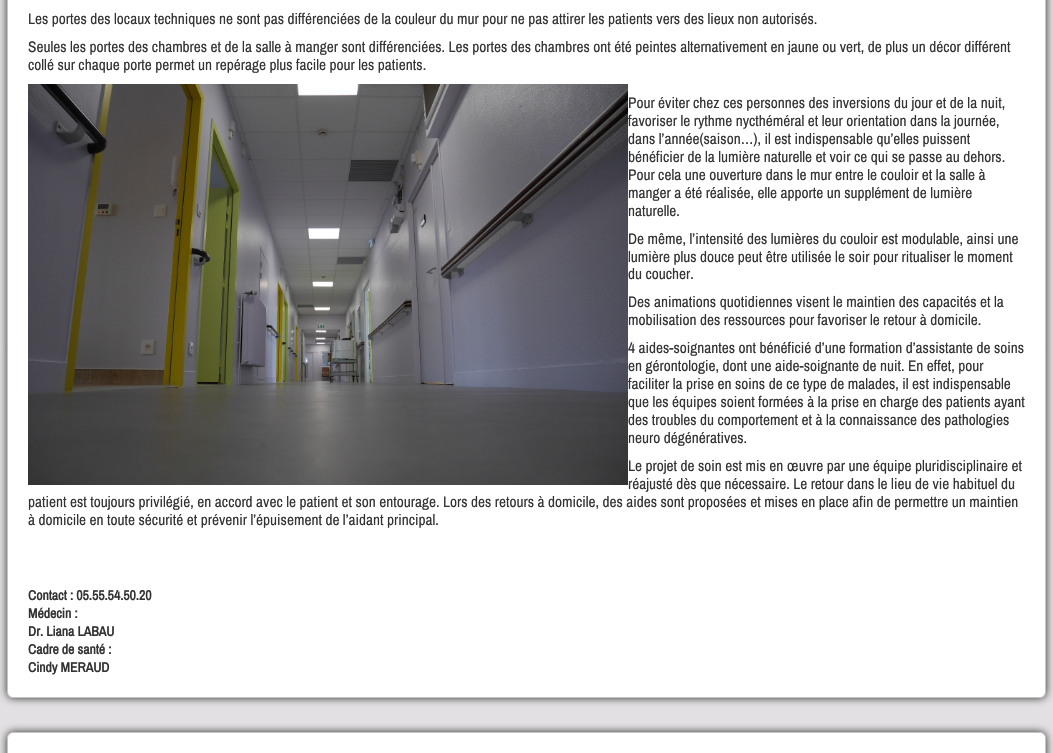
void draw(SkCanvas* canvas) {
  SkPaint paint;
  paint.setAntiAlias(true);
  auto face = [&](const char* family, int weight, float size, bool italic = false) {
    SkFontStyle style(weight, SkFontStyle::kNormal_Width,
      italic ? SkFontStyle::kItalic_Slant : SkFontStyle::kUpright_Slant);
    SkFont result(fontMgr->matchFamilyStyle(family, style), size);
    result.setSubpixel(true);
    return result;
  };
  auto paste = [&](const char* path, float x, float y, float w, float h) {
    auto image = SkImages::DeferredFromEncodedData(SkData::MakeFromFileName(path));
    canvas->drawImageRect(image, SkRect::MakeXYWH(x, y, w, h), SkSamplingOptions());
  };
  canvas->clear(0xffe2e0e2);
  paint.setColor(0xff2e2d2d);
  paint.setMaskFilter(SkMaskFilter::MakeBlur(kNormal_SkBlurStyle, 4));
  canvas->drawRoundRect(SkRect::MakeXYWH(7, -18, 1039, 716), 6, 6, paint);
  paint.setMaskFilter(nullptr);
  paint.setColor(0xffffffff);
  canvas->drawRoundRect(SkRect::MakeXYWH(7.5f, -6.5f, 1038, 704), 5.5f, 5.5f, paint);
  paint.setStroke(true);
  paint.setStrokeWidth(1);
  paint.setColor(0xffc5c5c5);
  canvas->drawRoundRect(SkRect::MakeXYWH(7.5f, -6.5f, 1038, 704), 5.5f, 5.5f, paint);
  paste("img/1.png", 28, 84, 600, 401);
  paint.setStroke(false);
  paint.setColor(0xff2e2d2d);
  paint.setMaskFilter(SkMaskFilter::MakeBlur(kNormal_SkBlurStyle, 4));
  canvas->drawRoundRect(SkRect::MakeXYWH(7, 732, 1039, 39), 6, 6, paint);
  paint.setMaskFilter(nullptr);
  paint.setColor(0xffffffff);
  canvas->drawRoundRect(SkRect::MakeXYWH(7.5f, 732.5f, 1038, 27), 5.5f, 5.5f, paint);
  paint.setStroke(true);
  paint.setColor(0xffc5c5c5);
  canvas->drawRoundRect(SkRect::MakeXYWH(7.5f, 732.5f, 1038, 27), 5.5f, 5.5f, paint);
  auto f0 = face("Archivo Narrow", 400, 15.35f);
  paint.setStroke(false);
  paint.setColor(0xff333333);
  {
    const struct { const char* s; float x, y; } items[] = {
      {"Les portes des locaux techniques ne sont pas différenciées de la couleur du mur pour ne pas attirer les patients vers des lieux non autorisés.", 28, 24},
      {"Seules les portes des chambres et de la salle à manger sont différenciées. Les portes des chambres ont été peintes alternativement en jaune ou vert, de plus un décor différent", 28, 52},
      {"collé sur chaque porte permet un repérage plus facile pour les patients.", 28, 70},
      {"Pour éviter chez ces personnes des inversions du jour et de la nuit,", 628, 108},
      {"favoriser le rythme nycthéméral et leur orientation dans la journée,", 628, 126},
      {"dans l’année(saison…), il est indispensable qu’elles puissent", 628, 144},
      {"bénéficier de la lumière naturelle et voir ce qui se passe au dehors.", 628, 162},
      {"Pour cela une ouverture dans le mur entre le couloir et la salle à", 628, 180},
      {"manger a été réalisée, elle apporte un supplément de lumière", 628, 198},
      {"naturelle.", 628, 216},
      {"De même, l’intensité des lumières du couloir est modulable, ainsi une", 628, 244},
      {"lumière plus douce peut être utilisée le soir pour ritualiser le moment", 628, 262},
      {"du coucher.", 628, 279},
      {"Des animations quotidiennes visent le maintien des capacités et la", 628, 307},
      {"mobilisation des ressources pour favoriser le retour à domicile.", 628, 325},
      {"4 aides-soignantes ont bénéficié d’une formation d’assistante de soins", 628, 353},
      {"en gérontologie, dont une aide-soignante de nuit. En effet, pour", 628, 371},
      {"faciliter la prise en soins de ce type de malades, il est indispensable", 628, 389},
      {"que les équipes soient formées à la prise en charge des patients ayant", 628, 407},
      {"des troubles du comportement et à la connaissance des pathologies", 628, 425},
      {"neuro dégénératives.", 628, 443},
      {"Le projet de soin est mis en œuvre par une équipe pluridisciplinaire et", 628, 471},
      {"réajusté dès que nécessaire. Le retour dans le lieu de vie habituel du", 628, 489},
      {"patient est toujours privilégié, en accord avec le patient et son entourage. Lors des retours à domicile, des aides sont proposées et mises en place afin de permettre un maintien", 28, 507},
      {"à domicile en toute sécurité et prévenir l’épuisement de l’aidant principal.", 28, 525},
    };
    for (auto [s, x, y] : items) {
      canvas->drawString(s, x, y, f0, paint);
    }
  }
  auto f1 = face("Archivo Narrow", 700, 13.75f);
  {
    const struct { const char* s; float x, y; } items[] = {
      {"Contact : 05.55.54.50.20", 28, 600},
      {"Médecin :", 28, 618},
      {"Dr. Liana LABAU", 28, 636},
      {"Cadre de santé :", 28, 654},
      {"Cindy MERAUD", 28, 672},
    };
    for (auto [s, x, y] : items) {
      canvas->drawString(s, x, y, f1, paint);
    }
  }
}
